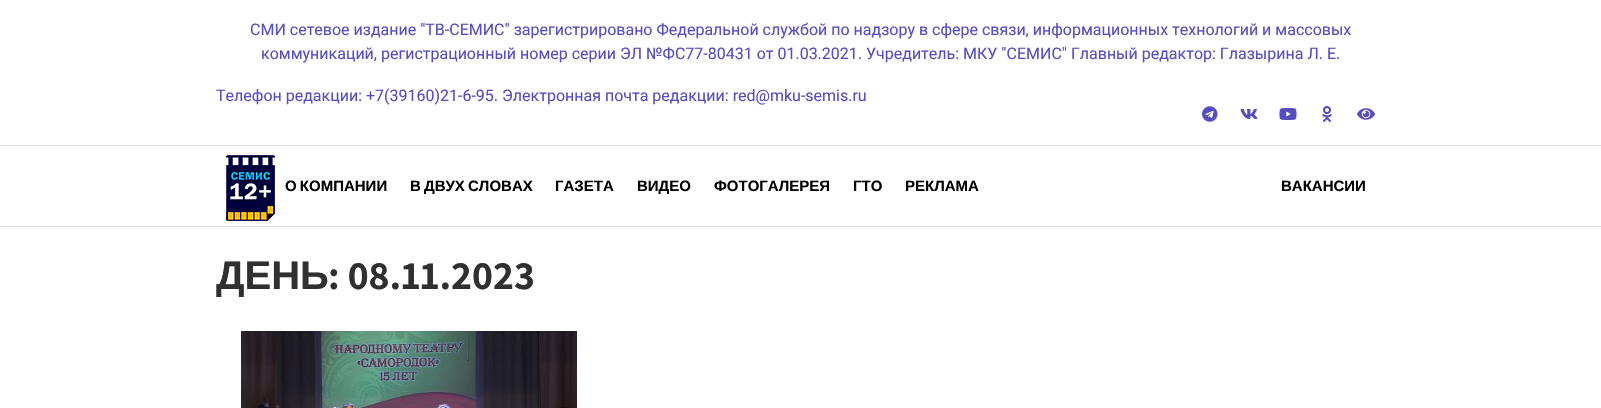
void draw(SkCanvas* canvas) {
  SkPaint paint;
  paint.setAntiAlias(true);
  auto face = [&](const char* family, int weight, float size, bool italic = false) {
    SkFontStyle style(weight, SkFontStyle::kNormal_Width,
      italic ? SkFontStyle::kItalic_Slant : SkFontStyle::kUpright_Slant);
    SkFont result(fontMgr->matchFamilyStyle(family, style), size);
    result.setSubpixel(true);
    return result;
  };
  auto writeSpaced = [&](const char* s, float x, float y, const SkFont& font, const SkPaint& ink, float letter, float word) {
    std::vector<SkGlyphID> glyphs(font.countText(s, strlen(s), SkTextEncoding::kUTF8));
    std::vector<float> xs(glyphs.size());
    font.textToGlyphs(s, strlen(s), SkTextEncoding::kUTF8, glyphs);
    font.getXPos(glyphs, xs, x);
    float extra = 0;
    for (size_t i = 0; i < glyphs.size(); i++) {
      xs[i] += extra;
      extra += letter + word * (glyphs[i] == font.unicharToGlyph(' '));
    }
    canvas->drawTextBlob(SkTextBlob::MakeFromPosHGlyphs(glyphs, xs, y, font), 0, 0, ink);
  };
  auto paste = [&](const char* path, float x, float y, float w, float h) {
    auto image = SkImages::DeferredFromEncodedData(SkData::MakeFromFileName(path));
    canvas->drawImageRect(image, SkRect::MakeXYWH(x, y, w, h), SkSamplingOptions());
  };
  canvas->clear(0xffffffff);
  paste("img/1.png", 1202, 106, 16, 16);
  paste("img/2.png", 1240, 109, 18, 10);
  paste("img/3.png", 1279, 108, 18, 12);
  paste("img/4.png", 1322, 106, 10, 16);
  paste("img/5.png", 1357, 108, 18, 12);
  paint.setColor(0xffdddddd);
  canvas->drawRect(SkRect::MakeXYWH(0, 145, 1601, 1), paint);
  canvas->drawRect(SkRect::MakeXYWH(0, 226, 1601, 1), paint);
  paste("img/6.png", 226, 155, 49, 66);
  paste("img/7.png", 241, 331, 336, 77);
  auto f0 = face("Roboto", 400, 16);
  paint.setColor(0xff554dc0);
  {
    const struct { const char* s; float x, y; } items[] = {
      {"СМИ сетевое издание \"ТВ-СЕМИС\" зарегистрировано Федеральной службой по надзору в сфере связи, информационных технологий и массовых", 250, 35},
      {"коммуникаций, регистрационный номер серии ЭЛ №ФС77-80431 от 01.03.2021. Учредитель: МКУ \"СЕМИС\" Главный редактор: Глазырина Л. Е.", 261, 59},
      {"Телефон редакции: +7(39160)21-6-95. Электронная почта редакции: red@mku-semis.ru", 216, 101},
    };
    for (auto [s, x, y] : items) {
      canvas->drawString(s, x, y, f0, paint);
    }
  }
  auto f1 = face("Liberation Sans", 700, 15);
  paint.setColor(0xff000000);
  writeSpaced("О КОМПАНИИ", 285, 191, f1, paint, 0, -1);
  writeSpaced("В ДВУХ СЛОВАХ", 410, 191, f1, paint, 0, -1);
  {
    const struct { const char* s; float x, y; } items[] = {
      {"ГАЗЕТА", 555, 191},
      {"ВИДЕО", 637, 191},
      {"ФОТОГАЛЕРЕЯ", 714, 191},
      {"ГТО", 853, 191},
      {"РЕКЛАМА", 905, 191},
      {"ВАКАНСИИ", 1281, 191},
    };
    for (auto [s, x, y] : items) {
      canvas->drawString(s, x, y, f1, paint);
    }
  }
  auto f2 = face("Liberation Sans", 700, 40);
  paint.setColor(0xff303030);
  canvas->drawString("ДЕНЬ", 216, 289, f2, paint);
  auto f3 = face("Assistant", 700, 40);
  canvas->drawString(": 08.11.2023", 328, 289, f3, paint);
}
